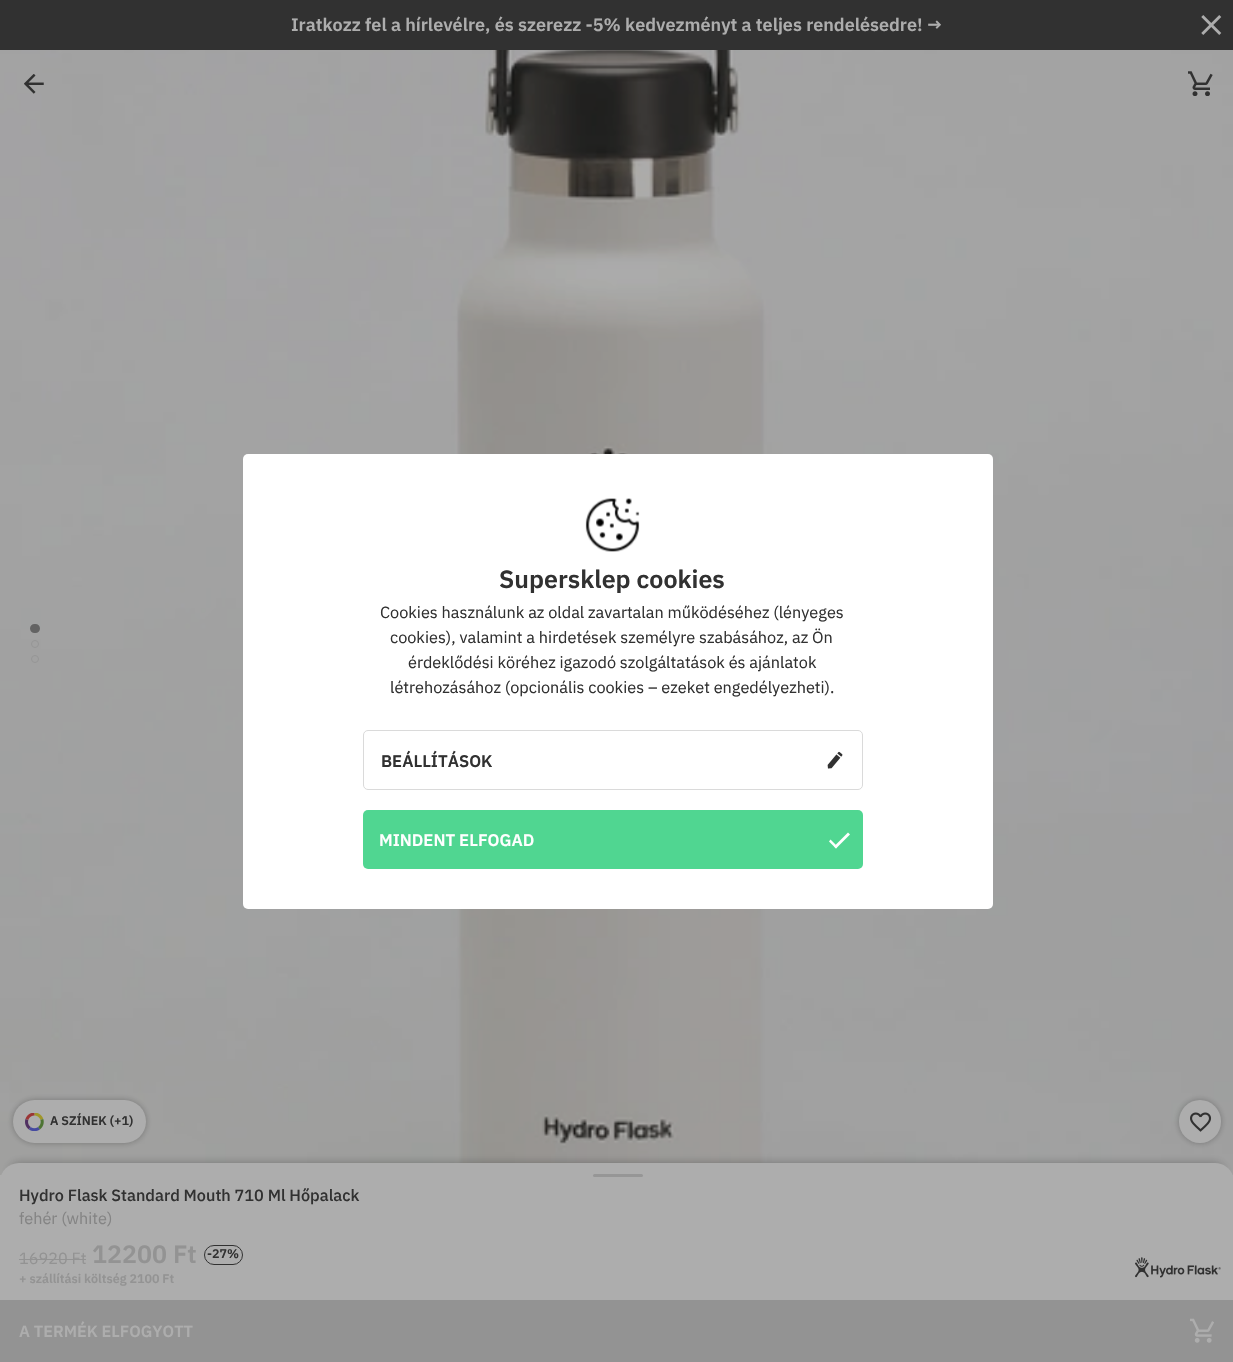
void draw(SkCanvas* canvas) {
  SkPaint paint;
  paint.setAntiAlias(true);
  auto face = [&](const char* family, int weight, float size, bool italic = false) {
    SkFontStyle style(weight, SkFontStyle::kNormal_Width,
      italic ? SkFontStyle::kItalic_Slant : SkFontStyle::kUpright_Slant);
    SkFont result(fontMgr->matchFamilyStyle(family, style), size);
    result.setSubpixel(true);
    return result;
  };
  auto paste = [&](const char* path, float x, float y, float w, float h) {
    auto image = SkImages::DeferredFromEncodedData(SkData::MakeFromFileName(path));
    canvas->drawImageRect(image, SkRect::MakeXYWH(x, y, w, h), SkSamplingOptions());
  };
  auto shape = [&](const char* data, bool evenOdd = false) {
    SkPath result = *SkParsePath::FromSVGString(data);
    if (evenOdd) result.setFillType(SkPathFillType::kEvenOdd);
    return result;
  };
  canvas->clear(0xffadadad);
  paint.setColor(0xff313131);
  canvas->drawRect(SkRect::MakeXYWH(0, 0, 1233, 50), paint);
  paste("img/1.png", 1201, 15, 21, 20);
  paste("img/6.png", 0, 50, 1233, 1125);
  paste("img/2.png", 24, 74, 20, 20);
  paste("img/3.png", 1188, 71, 25, 25);
  paint.setColor(0x4d141414);
  paint.setMaskFilter(SkMaskFilter::MakeBlur(kNormal_SkBlurStyle, 3));
  canvas->drawRoundRect(SkRect::MakeXYWH(13, 1100, 133, 43), 21.5f, 21.5f, paint);
  paint.setMaskFilter(nullptr);
  paint.setColor(0xffadadad);
  canvas->drawRoundRect(SkRect::MakeXYWH(13, 1100, 133, 43), 21.5f, 21.5f, paint);
  paste("img/4.png", 25, 1113, 19, 18);
  paint.setColor(0x4d141414);
  paint.setMaskFilter(SkMaskFilter::MakeBlur(kNormal_SkBlurStyle, 3));
  canvas->drawRoundRect(SkRect::MakeXYWH(1179, 1100, 42, 43), 21, 21, paint);
  paint.setMaskFilter(nullptr);
  paint.setColor(0xffadadad);
  canvas->drawRoundRect(SkRect::MakeXYWH(1179, 1100, 42, 43), 21, 21, paint);
  paste("img/5.png", 1190, 1112, 22, 20);
  paint.setColor(0xff636363);
  canvas->drawRoundRect(SkRect::MakeXYWH(31, 625, 8, 7), 3.5f, 3.5f, paint);
  paint.setStroke(true);
  paint.setStrokeWidth(2);
  canvas->drawRoundRect(SkRect::MakeXYWH(31, 625, 8, 7), 3.5f, 3.5f, paint);
  paint.setStrokeWidth(1);
  paint.setColor(0xff959595);
  canvas->drawCircle(35, 644, 3.5f, paint);
  canvas->drawCircle(35, 659, 3.5f, paint);
  paint.setStroke(false);
  paint.setColor(0x4d141414);
  paint.setMaskFilter(SkMaskFilter::MakeBlur(kNormal_SkBlurStyle, 5));
  canvas->drawRoundRect(SkRect::MakeXYWH(10, 1163, 1214, 118), 9, 9, paint);
  paint.setMaskFilter(nullptr);
  paint.setColor(0xffadadad);
  canvas->drawPath(shape("M19 1163H1215C1225.5 1163 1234 1171.5 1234 1182V1301H0V1182C0 1171.5 8.5 1163 19 1163Z"), paint);
  paint.setColor(0xff969696);
  canvas->drawRoundRect(SkRect::MakeXYWH(593, 1174, 50, 3), 1.5f, 1.5f, paint);
  paint.setColor(0xff939393);
  canvas->drawRect(SkRect::MakeXYWH(19, 1259, 67, 1), paint);
  paint.setStroke(true);
  paint.setColor(0xff313131);
  canvas->drawRoundRect(SkRect::MakeXYWH(204.5f, 1245.5f, 38, 19), 9.5f, 9.5f, paint);
  paste("img/7.png", 1135, 1257, 86, 21);
  paint.setStroke(false);
  paint.setColor(0xff939393);
  canvas->drawRect(SkRect::MakeXYWH(0, 1300, 1233, 62), paint);
  paste("img/8.png", 1190, 1318, 24, 25);
  paint.setColor(0xffffffff);
  canvas->drawRoundRect(SkRect::MakeXYWH(243, 454, 750, 455), 5, 5, paint);
  paste("img/9.png", 585, 498, 55, 54);
  paint.setStroke(true);
  paint.setColor(0xffdadada);
  canvas->drawRoundRect(SkRect::MakeXYWH(363.5f, 730.5f, 499, 59), 4.5f, 4.5f, paint);
  paste("img/10.png", 827, 751, 16, 18);
  paint.setStroke(false);
  paint.setColor(0xff50d691);
  canvas->drawRoundRect(SkRect::MakeXYWH(363, 810, 500, 59), 5, 5, paint);
  paint.setColor(0xffffffff);
  canvas->drawPath(shape("M836 848.5L829 841.5L830.5 839.5L837.5 846.5Z"), paint);
  canvas->drawPath(shape("M836 848.5L834 846.5L848 832.5L850 834.5Z"), paint);
  auto f0 = face("IBM Plex Sans", 600, 18);
  paint.setColor(0xffadadad);
  canvas->drawString("Iratkozz fel a hírlevélre, és szerezz -5% kedvezményt a teljes rendelésedre! →", 291, 31, f0, paint);
  auto f1 = face("IBM Plex Sans", 600, 12.5f);
  paint.setColor(0xff313131);
  canvas->drawString("A SZÍNEK (+1)", 50, 1125, f1, paint);
  auto f2 = face("IBM Plex Sans", 500, 16.25f);
  canvas->drawString("Hydro Flask Standard Mouth 710 Ml Hőpalack", 19, 1201, f2, paint);
  auto f3 = face("IBM Plex Sans", 400, 16.25f);
  paint.setColor(0xff848484);
  canvas->drawString("fehér (white)", 19, 1224, f3, paint);
  paint.setColor(0xff939393);
  canvas->drawString("16920 Ft", 19, 1264, f3, paint);
  auto f4 = face("IBM Plex Sans", 600, 25);
  canvas->drawString("12200 Ft", 92, 1263, f4, paint);
  paint.setColor(0xff313131);
  canvas->drawString("-27%", 207, 1258, f1, paint);
  paint.setColor(0xff939393);
  canvas->drawString("+ szállítási költség 2100 Ft", 19, 1283, f1, paint);
  auto f5 = face("IBM Plex Sans", 600, 16.25f);
  paint.setColor(0xffadadad);
  canvas->drawString("A TERMÉK ELFOGYOTT", 19, 1337, f5, paint);
  paint.setColor(0xff313131);
  canvas->drawString("Supersklep cookies", 499, 588, f4, paint);
  {
    const struct { const char* s; float x, y; } items[] = {
      {"Cookies használunk az oldal zavartalan működéséhez (lényeges", 380, 618},
      {"cookies), valamint a hirdetések személyre szabásához, az Ön", 390, 643},
      {"érdeklődési köréhez igazodó szolgáltatások és ajánlatok", 408, 668},
      {"létrehozásához (opcionális cookies – ezeket engedélyezheti).", 390, 693},
    };
    for (auto [s, x, y] : items) {
      canvas->drawString(s, x, y, f3, paint);
    }
  }
  auto f6 = face("IBM Plex Sans", 600, 16.75f);
  canvas->drawString("BEÁLLÍTÁSOK", 381, 767, f6, paint);
  paint.setColor(0xffffffff);
  canvas->drawString("MINDENT ELFOGAD", 379, 846, f6, paint);
}
